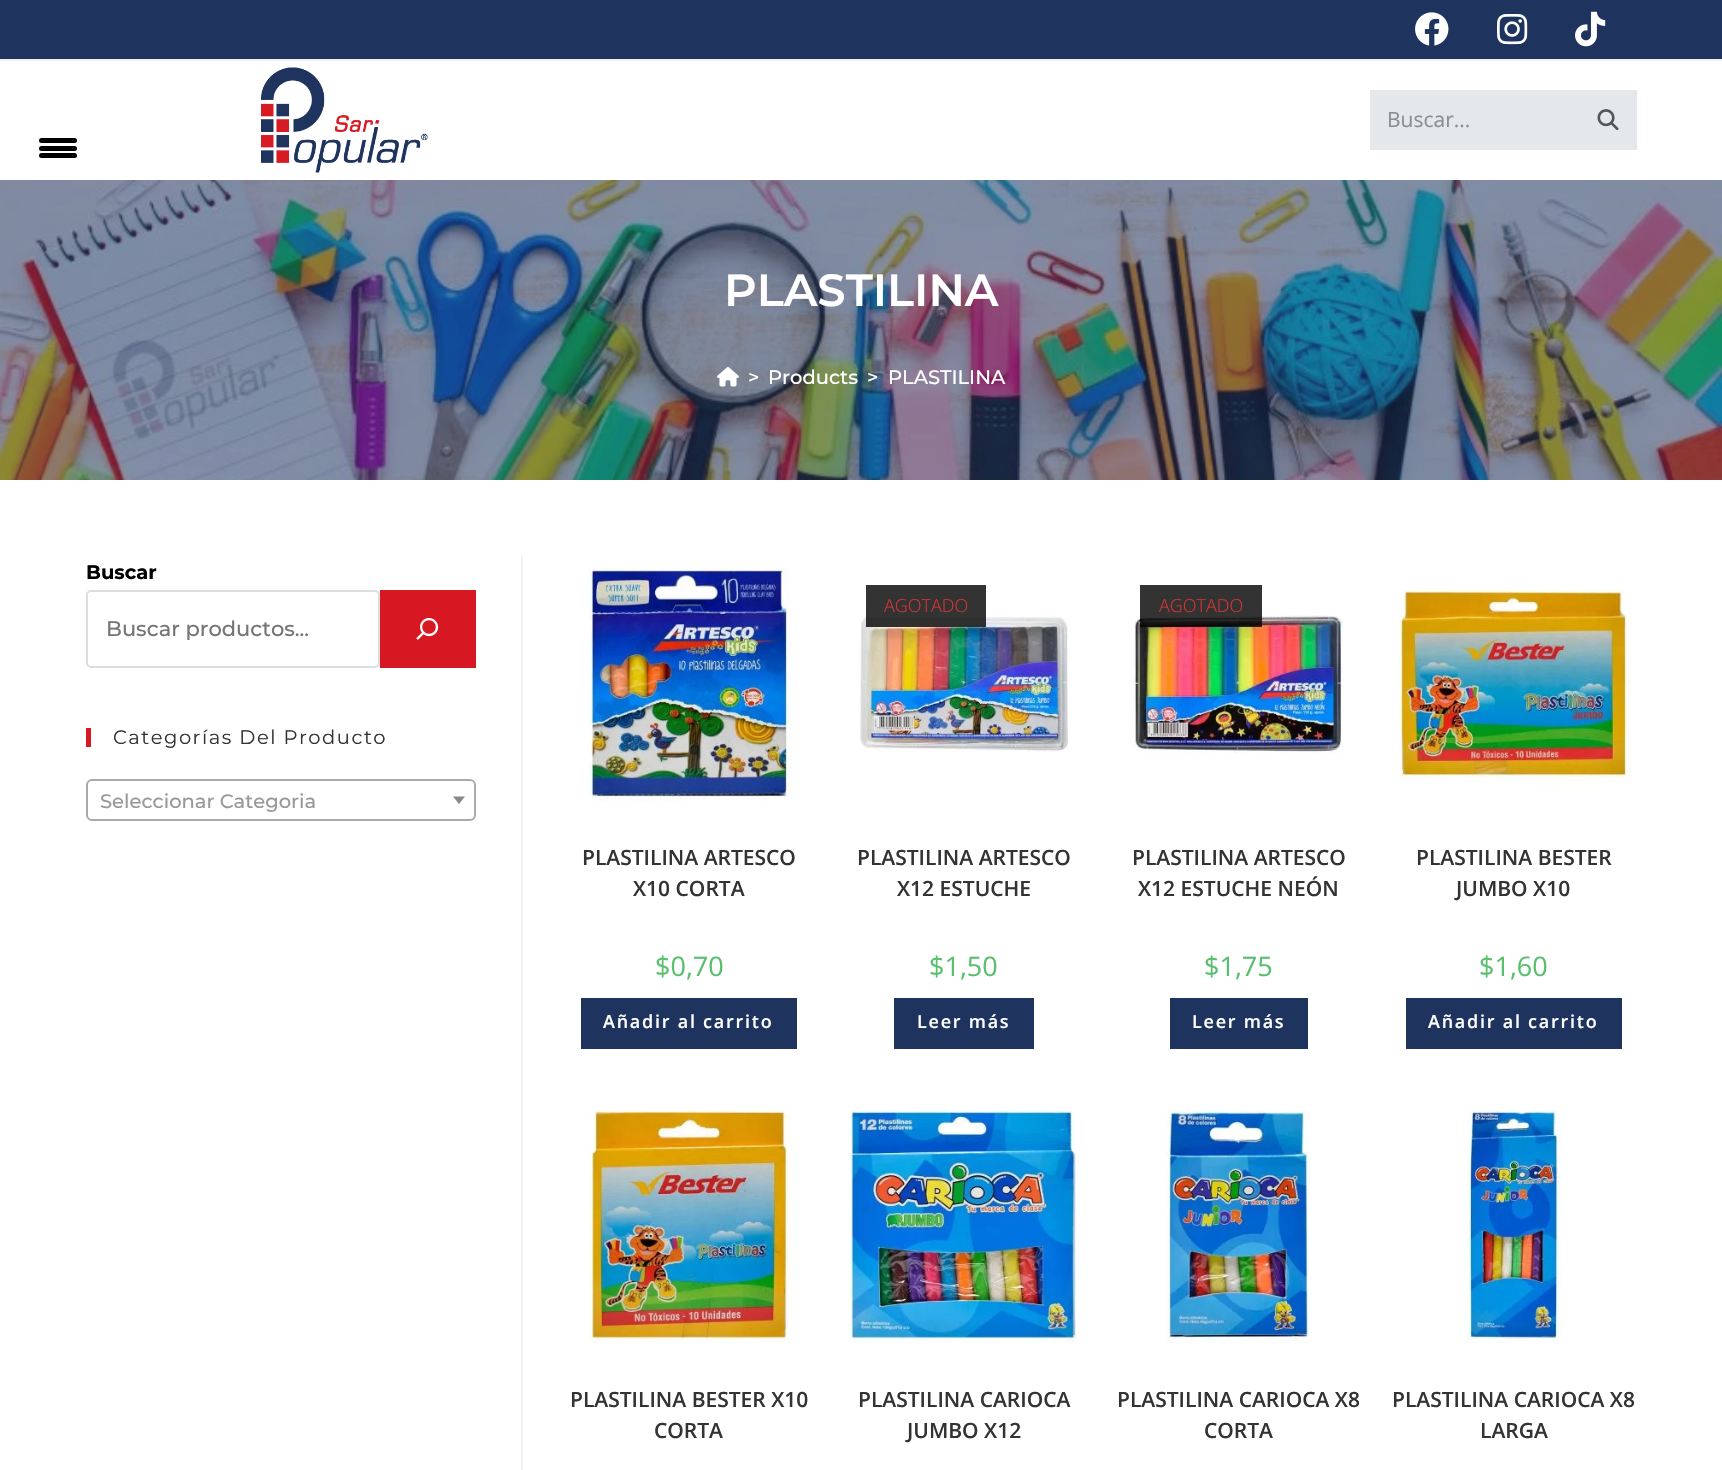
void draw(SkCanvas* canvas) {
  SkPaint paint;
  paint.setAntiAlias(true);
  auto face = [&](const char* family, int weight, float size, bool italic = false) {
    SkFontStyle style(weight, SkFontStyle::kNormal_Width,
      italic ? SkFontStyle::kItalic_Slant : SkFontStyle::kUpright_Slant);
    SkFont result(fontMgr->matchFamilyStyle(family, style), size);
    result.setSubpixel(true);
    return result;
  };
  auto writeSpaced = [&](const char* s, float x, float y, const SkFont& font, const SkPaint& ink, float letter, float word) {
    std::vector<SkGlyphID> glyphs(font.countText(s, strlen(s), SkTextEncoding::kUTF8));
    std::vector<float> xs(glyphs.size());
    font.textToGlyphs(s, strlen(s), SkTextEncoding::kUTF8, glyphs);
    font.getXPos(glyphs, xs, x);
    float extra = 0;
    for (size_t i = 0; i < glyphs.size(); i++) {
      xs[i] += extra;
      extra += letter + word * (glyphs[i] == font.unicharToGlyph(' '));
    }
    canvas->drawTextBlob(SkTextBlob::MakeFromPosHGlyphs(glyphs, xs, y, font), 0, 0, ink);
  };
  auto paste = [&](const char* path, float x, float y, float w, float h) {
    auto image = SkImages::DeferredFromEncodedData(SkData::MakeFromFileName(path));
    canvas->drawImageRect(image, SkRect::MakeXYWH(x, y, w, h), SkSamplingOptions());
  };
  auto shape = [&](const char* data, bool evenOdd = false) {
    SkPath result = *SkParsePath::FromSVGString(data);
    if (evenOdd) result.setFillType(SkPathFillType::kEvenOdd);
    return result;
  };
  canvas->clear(0xffffffff);
  paint.setColor(0xff000000);
  canvas->drawRoundRect(SkRect::MakeXYWH(39, 146, 38, 5), 2.5f, 2.5f, paint);
  canvas->drawRoundRect(SkRect::MakeXYWH(39, 138, 38, 5), 2.5f, 2.5f, paint);
  canvas->drawRoundRect(SkRect::MakeXYWH(39, 153, 38, 5), 2.5f, 2.5f, paint);
  paint.setColor(0xff1e335d);
  canvas->drawRect(SkRect::MakeXYWH(0, 0, 1722, 59), paint);
  paint.setColor(0xfff1f1f1);
  canvas->drawRect(SkRect::MakeXYWH(0, 59, 1722, 2), paint);
  paste("img/1.png", 1415, 12, 34, 34);
  paste("img/2.png", 1497, 14, 31, 31);
  paste("img/3.png", 1575, 11, 31, 36);
  paste("img/4.png", 261, 67, 167, 106);
  paint.setColor(0xffe4e7ec);
  canvas->drawRect(SkRect::MakeXYWH(1370, 90, 267, 60), paint);
  paste("img/5.png", 1597, 109, 22, 22);
  paste("img/6.png", 0, 180, 1722, 300);
  paste("img/7.png", 717, 367, 22, 20);
  paint.setStroke(true);
  paint.setStrokeWidth(2);
  paint.setColor(0xffdddddd);
  canvas->drawRoundRect(SkRect::MakeXYWH(87, 591, 292, 76), 4, 4, paint);
  paint.setStroke(false);
  paint.setColor(0xffd71822);
  canvas->drawRect(SkRect::MakeXYWH(380, 590, 96, 78), paint);
  paste("img/8.png", 416, 618, 23, 22);
  canvas->drawRect(SkRect::MakeXYWH(86, 728, 5, 19), paint);
  paint.setStroke(true);
  paint.setColor(0xffaaaaaa);
  canvas->drawRoundRect(SkRect::MakeXYWH(87, 780, 388, 40), 5, 5, paint);
  paint.setStroke(false);
  paint.setColor(0xff888888);
  canvas->drawPath(shape("M453 796.5H465L459 804Z"), paint);
  paint.setColor(0xfff1f1f1);
  canvas->drawRect(SkRect::MakeXYWH(521, 555, 2, 915), paint);
  paste("img/9.png", 588, 568, 204, 233);
  paint.setColor(0xff1e335d);
  canvas->drawRect(SkRect::MakeXYWH(581, 998, 216, 51), paint);
  paste("img/10.png", 860, 615, 208, 137);
  paint.setColor(0xcc000000);
  canvas->drawRect(SkRect::MakeXYWH(866, 585, 120, 42), paint);
  paint.setColor(0xff1e335d);
  canvas->drawRect(SkRect::MakeXYWH(894, 998, 140, 51), paint);
  paste("img/11.png", 1131, 615, 212, 139);
  paint.setColor(0xcc000000);
  canvas->drawRect(SkRect::MakeXYWH(1140, 585, 122, 42), paint);
  paint.setColor(0xff1e335d);
  canvas->drawRect(SkRect::MakeXYWH(1170, 998, 138, 51), paint);
  paste("img/12.png", 1399, 589, 232, 198);
  canvas->drawRect(SkRect::MakeXYWH(1406, 998, 216, 51), paint);
  paste("img/13.png", 588, 1109, 205, 234);
  paste("img/14.png", 849, 1110, 227, 233);
  paste("img/15.png", 1165, 1110, 145, 233);
  paste("img/16.png", 1467, 1110, 95, 233);
  auto f0 = face("Open Sans", 400, 21);
  paint.setColor(0xff8c8d90);
  canvas->drawString("Buscar...", 1387, 127, f0, paint);
  auto f1 = face("Montserrat", 600, 45);
  paint.setColor(0xffffffff);
  canvas->drawString("PLASTILINA", 724, 306, f1, paint);
  auto f2 = face("Montserrat", 500, 19.5f);
  {
    const struct { const char* s; float x, y; } items[] = {
      {">", 748, 384},
      {"Products", 768, 384},
      {">", 867, 384},
      {"PLASTILINA", 888, 384},
    };
    for (auto [s, x, y] : items) {
      canvas->drawString(s, x, y, f2, paint);
    }
  }
  auto f3 = face("Montserrat", 700, 19.5f);
  paint.setColor(0xff000000);
  canvas->drawString("Buscar", 86, 579, f3, paint);
  auto f4 = face("Montserrat", 500, 21);
  paint.setColor(0xff757575);
  canvas->drawString("Buscar productos...", 106, 636, f4, paint);
  auto f5 = face("Montserrat", 400, 19.5f);
  paint.setColor(0xff333333);
  writeSpaced("Categorías Del Producto", 113, 744, f5, paint, 1.5f, 0);
  paint.setColor(0xff999999);
  canvas->drawString("Seleccionar Categoria", 100, 808, f2, paint);
  auto f6 = face("Open Sans", 600, 21);
  paint.setColor(0xff333333);
  canvas->drawString("PLASTILINA ARTESCO", 582, 865, f6, paint);
  canvas->drawString("X10 CORTA", 633, 896, f6, paint);
  auto f7 = face("Open Sans", 400, 27);
  paint.setColor(0xff57bf6d);
  canvas->drawString("$0,70", 655, 976, f7, paint);
  auto f8 = face("Open Sans", 600, 18);
  paint.setColor(0xffffffff);
  writeSpaced("Añadir al carrito", 603, 1028, f8, paint, 1.75f, 0);
  auto f9 = face("Open Sans", 300, 18);
  paint.setColor(0xffdd3333);
  canvas->drawString("AGOTADO", 884, 612, f9, paint);
  paint.setColor(0xff333333);
  canvas->drawString("PLASTILINA ARTESCO", 857, 865, f6, paint);
  canvas->drawString("X12 ESTUCHE", 897, 896, f6, paint);
  paint.setColor(0xff57bf6d);
  canvas->drawString("$1,50", 929, 976, f7, paint);
  paint.setColor(0xffffffff);
  writeSpaced("Leer más", 917, 1028, f8, paint, 1.75f, 0);
  paint.setColor(0xffdd3333);
  canvas->drawString("AGOTADO", 1159, 612, f9, paint);
  paint.setColor(0xff333333);
  canvas->drawString("PLASTILINA ARTESCO", 1132, 865, f6, paint);
  canvas->drawString("X12 ESTUCHE NEÓN", 1138, 896, f6, paint);
  paint.setColor(0xff57bf6d);
  canvas->drawString("$1,75", 1204, 976, f7, paint);
  paint.setColor(0xffffffff);
  writeSpaced("Leer más", 1192, 1028, f8, paint, 1.75f, 0);
  paint.setColor(0xff333333);
  canvas->drawString("PLASTILINA BESTER", 1416, 865, f6, paint);
  canvas->drawString("JUMBO X10", 1456, 896, f6, paint);
  paint.setColor(0xff57bf6d);
  canvas->drawString("$1,60", 1479, 976, f7, paint);
  paint.setColor(0xffffffff);
  writeSpaced("Añadir al carrito", 1428, 1028, f8, paint, 1.75f, 0);
  paint.setColor(0xff333333);
  {
    const struct { const char* s; float x, y; } items[] = {
      {"PLASTILINA BESTER X10", 570, 1407},
      {"CORTA", 654, 1438},
      {"PLASTILINA CARIOCA", 858, 1407},
      {"JUMBO X12", 907, 1438},
      {"PLASTILINA CARIOCA X8", 1117, 1407},
      {"CORTA", 1204, 1438},
      {"PLASTILINA CARIOCA X8", 1392, 1407},
      {"LARGA", 1480, 1438},
    };
    for (auto [s, x, y] : items) {
      canvas->drawString(s, x, y, f6, paint);
    }
  }
}
